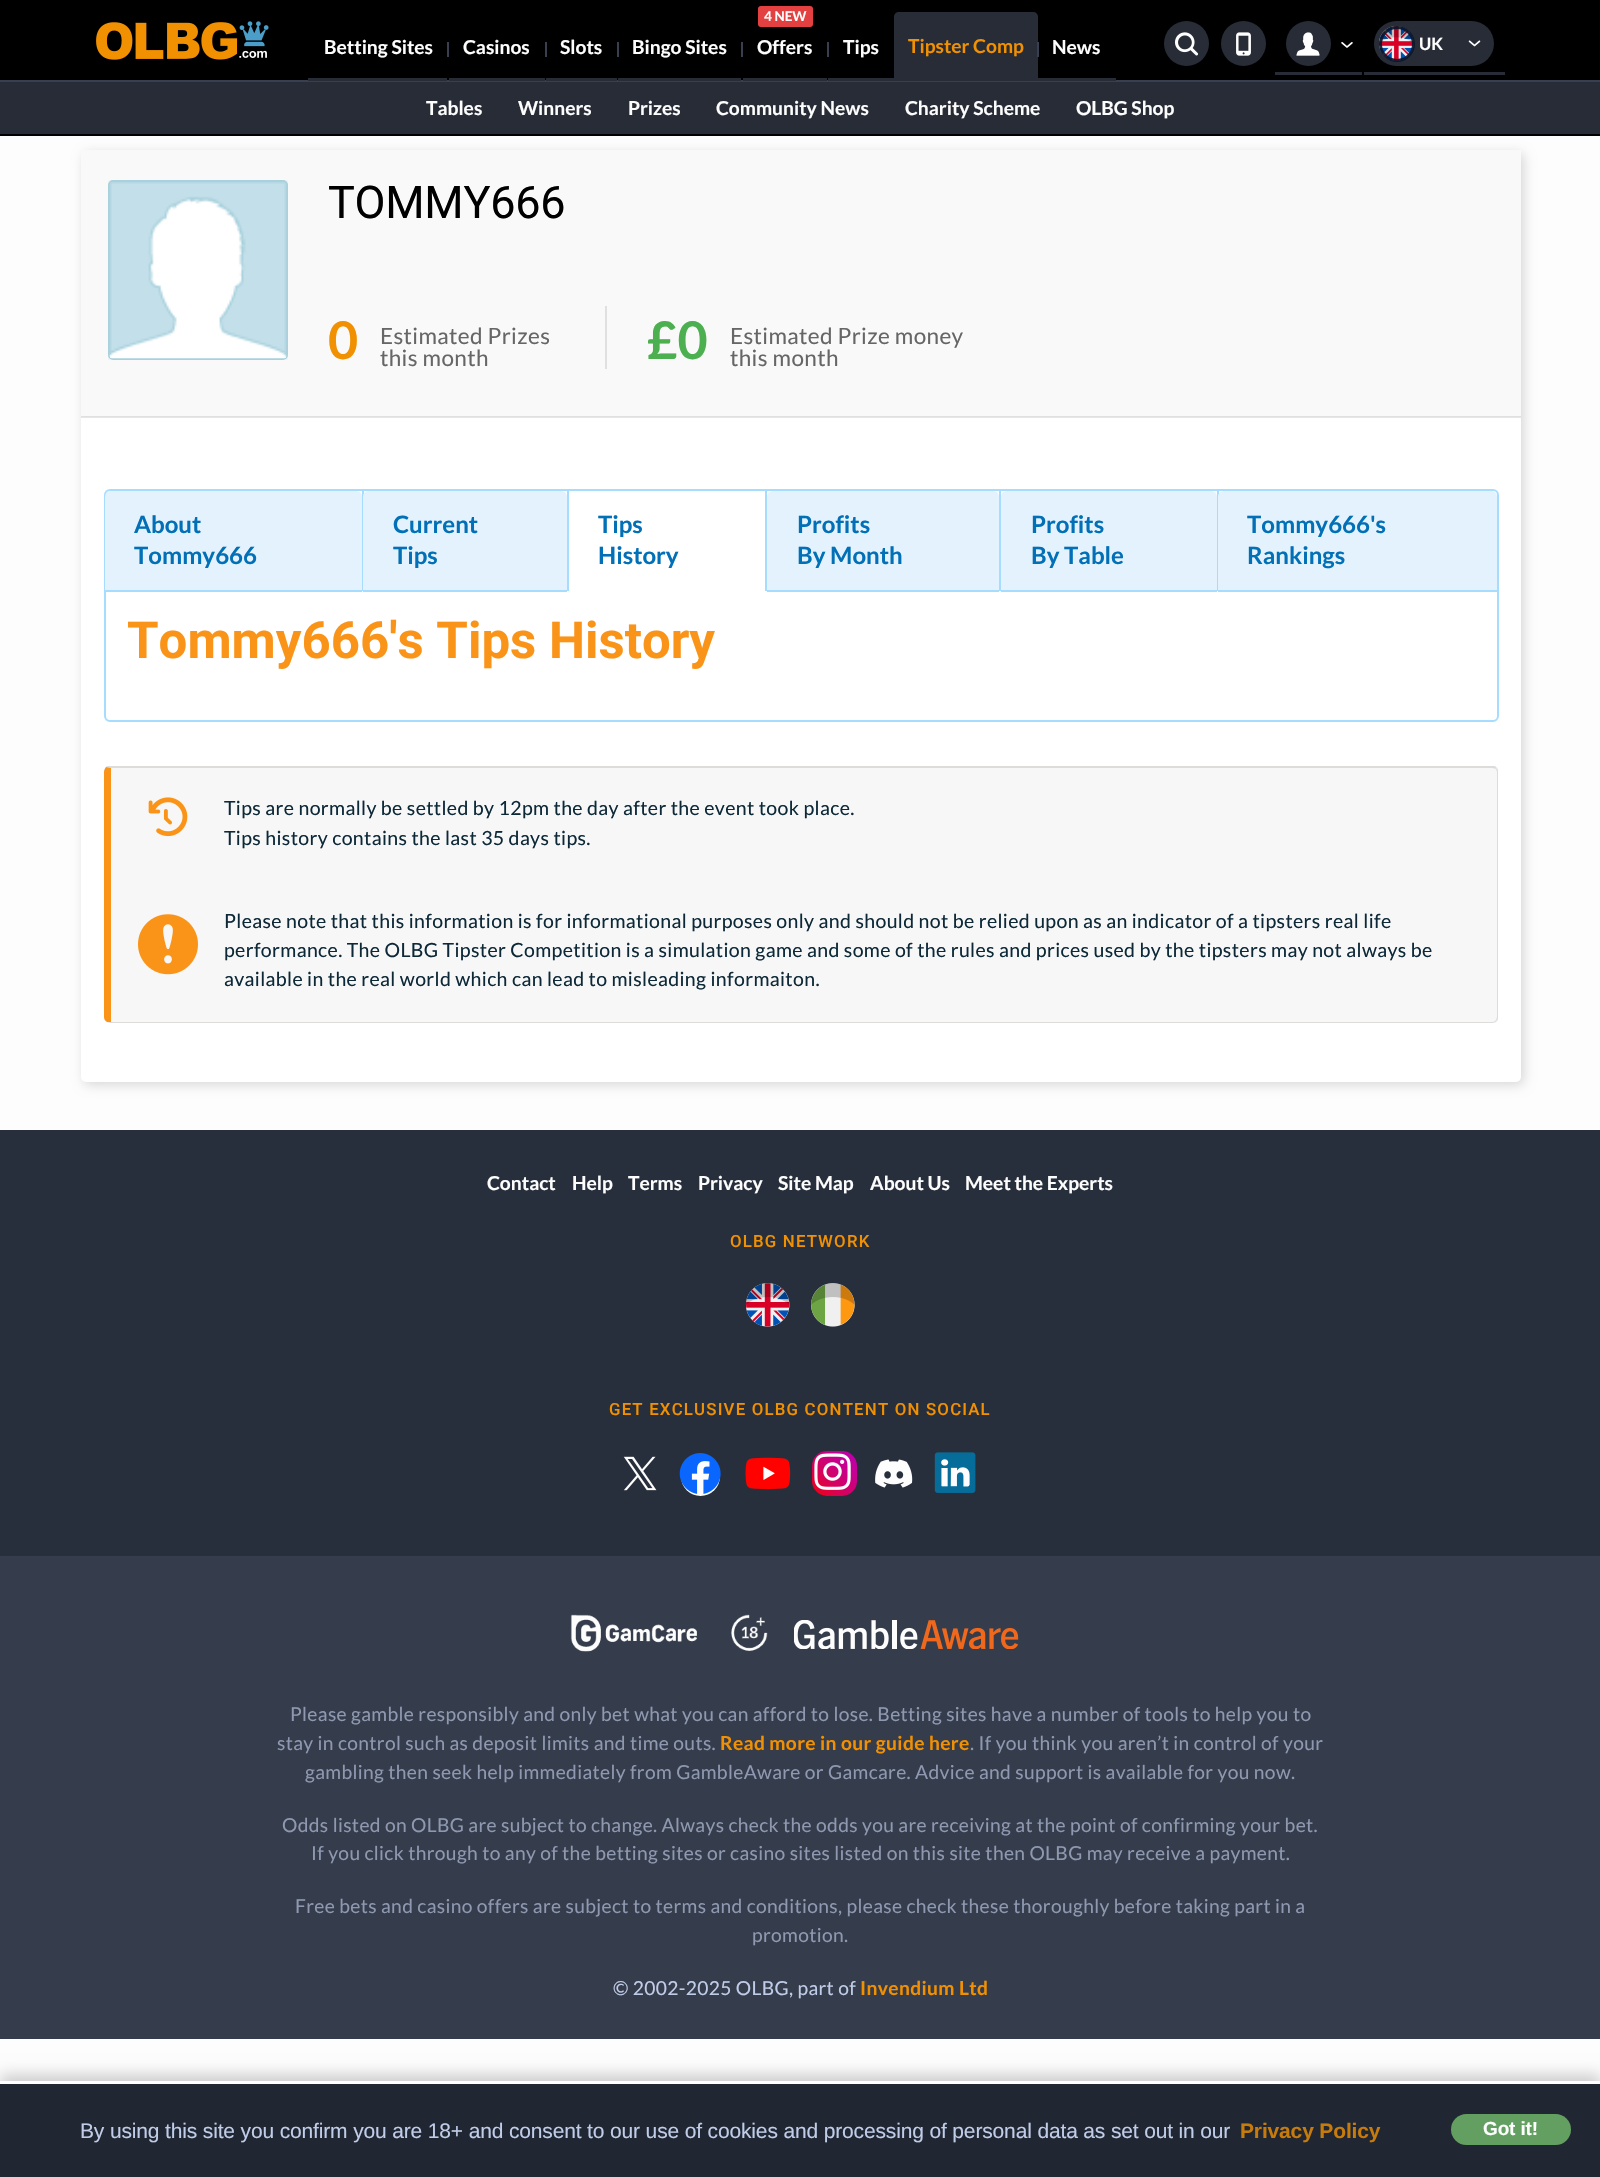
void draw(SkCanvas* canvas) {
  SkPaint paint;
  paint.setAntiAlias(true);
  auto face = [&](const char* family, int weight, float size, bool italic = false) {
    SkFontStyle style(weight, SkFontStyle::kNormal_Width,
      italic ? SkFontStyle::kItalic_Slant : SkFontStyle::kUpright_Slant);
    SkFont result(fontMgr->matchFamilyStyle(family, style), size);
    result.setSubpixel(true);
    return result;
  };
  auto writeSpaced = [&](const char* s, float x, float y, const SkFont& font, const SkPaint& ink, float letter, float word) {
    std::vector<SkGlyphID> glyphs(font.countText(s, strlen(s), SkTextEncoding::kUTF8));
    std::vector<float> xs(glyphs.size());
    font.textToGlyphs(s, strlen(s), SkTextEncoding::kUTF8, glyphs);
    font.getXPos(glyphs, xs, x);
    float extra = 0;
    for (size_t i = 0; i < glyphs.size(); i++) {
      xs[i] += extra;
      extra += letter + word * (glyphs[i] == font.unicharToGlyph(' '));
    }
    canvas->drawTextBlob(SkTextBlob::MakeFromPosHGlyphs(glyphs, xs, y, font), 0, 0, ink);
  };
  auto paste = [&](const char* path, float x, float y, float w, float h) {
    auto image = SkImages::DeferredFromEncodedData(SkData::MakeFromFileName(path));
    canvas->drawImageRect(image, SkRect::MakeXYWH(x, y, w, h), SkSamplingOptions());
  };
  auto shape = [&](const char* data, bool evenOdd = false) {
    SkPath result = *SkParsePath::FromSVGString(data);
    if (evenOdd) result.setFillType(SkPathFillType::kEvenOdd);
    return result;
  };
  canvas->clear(0xfffdfdfd);
  paint.setColor(0xff000000);
  canvas->drawRect(SkRect::MakeXYWH(0, 0, 1600, 80), paint);
  paint.setColor(0x26000000);
  paint.setMaskFilter(SkMaskFilter::MakeBlur(kNormal_SkBlurStyle, 6));
  canvas->drawRoundRect(SkRect::MakeXYWH(84, 153, 1440, 932), 5, 5, paint);
  paint.setMaskFilter(nullptr);
  paint.setColor(0xff000000);
  canvas->drawRect(SkRect::MakeXYWH(0, 134, 1600, 2), paint);
  paste("img/1.png", 96, 21, 173, 39);
  {
    const struct { float x, y, w, h; SkColor color; } items[] = {
      {0, 80, 1600, 2, 0xff383f4f},
      {308, 78, 139, 3, 0xff272c36},
      {447, 42, 2, 15, 0xff383f4f},
      {449, 78, 96, 3, 0xff272c36},
      {545, 42, 2, 15, 0xff383f4f},
      {546, 78, 71, 3, 0xff272c36},
      {617, 42, 2, 15, 0xff383f4f},
      {618, 78, 123, 3, 0xff272c36},
      {741, 42, 2, 15, 0xff383f4f},
    };
    for (auto [x, y, w, h, color] : items) {
      paint.setColor(color);
      canvas->drawRect(SkRect::MakeXYWH(x, y, w, h), paint);
    }
  }
  paint.setColor(0xffe34141);
  canvas->drawRoundRect(SkRect::MakeXYWH(758, 6, 55, 21), 3, 3, paint);
  {
    const struct { float x, y, w, h; SkColor color; } items[] = {
      {743, 78, 84, 3, 0xff272c36},
      {827, 42, 2, 15, 0xff383f4f},
      {828, 78, 66, 3, 0xff272c36},
    };
    for (auto [x, y, w, h, color] : items) {
      paint.setColor(color);
      canvas->drawRect(SkRect::MakeXYWH(x, y, w, h), paint);
    }
  }
  canvas->drawPath(shape("M899 12H1033C1036 12 1038 14 1038 17V80H894V17C894 14 896 12 899 12Z"), paint);
  {
    const struct { float x, y, w, h; SkColor color; } items[] = {
      {894, 80, 144, 1, 0xff272c36},
      {1037, 42, 2, 15, 0xff383f4f},
      {1038, 78, 78, 3, 0xff272c36},
    };
    for (auto [x, y, w, h, color] : items) {
      paint.setColor(color);
      canvas->drawRect(SkRect::MakeXYWH(x, y, w, h), paint);
    }
  }
  canvas->drawCircle(1186.5f, 43.5f, 22.5f, paint);
  paste("img/2.png", 1175, 32, 24, 24);
  canvas->drawCircle(1243.5f, 43.5f, 22.5f, paint);
  paste("img/3.png", 1236, 32, 15, 24);
  canvas->drawCircle(1308.5f, 43.5f, 22.5f, paint);
  paste("img/4.png", 1296, 32, 24, 24);
  paste("img/5.png", 1341, 42, 12, 6);
  canvas->drawRect(SkRect::MakeXYWH(1275, 72, 87, 3), paint);
  canvas->drawRoundRect(SkRect::MakeXYWH(1374, 21, 120, 45), 22.5f, 22.5f, paint);
  paste("img/6.png", 1379, 26, 35, 35);
  paint.setStroke(true);
  paint.setStrokeWidth(3);
  paint.setColor(0xe80a152b);
  canvas->drawCircle(1397, 44, 16.5f, paint);
  paste("img/7.png", 1468, 40, 13, 7);
  paint.setStroke(false);
  paint.setColor(0xff272c36);
  canvas->drawRect(SkRect::MakeXYWH(1364, 72, 141, 3), paint);
  canvas->drawRect(SkRect::MakeXYWH(0, 82, 1600, 52), paint);
  paint.setColor(0xffffffff);
  canvas->drawRoundRect(SkRect::MakeXYWH(81, 150, 1440, 932), 5, 5, paint);
  {
    const struct { float x, y, w, h; SkColor color; } items[] = {
      {81, 417, 1440, 1, 0xffe6e6e6},
      {81, 150, 1440, 266, 0xfff9f9f9},
      {81, 416, 1440, 1, 0xffe0e0e0},
      {108, 180, 180, 180, 0xfff3f3f3},
    };
    for (auto [x, y, w, h, color] : items) {
      paint.setColor(color);
      canvas->drawRect(SkRect::MakeXYWH(x, y, w, h), paint);
    }
  }
  paint.setStroke(true);
  paint.setStrokeWidth(2);
  paint.setColor(0xffa8d1dd);
  canvas->drawRoundRect(SkRect::MakeXYWH(109, 181, 178, 178), 4, 4, paint);
  paste("img/8.png", 109, 182, 178, 177);
  paint.setStroke(false);
  paint.setColor(0xffe0e0e0);
  canvas->drawRect(SkRect::MakeXYWH(605, 306, 2, 63), paint);
  paint.setStroke(true);
  paint.setColor(0xffa6ddff);
  canvas->drawRoundRect(SkRect::MakeXYWH(105, 490, 1393, 231), 5, 5, paint);
  paint.setStroke(false);
  canvas->drawRect(SkRect::MakeXYWH(362, 491, 2, 100), paint);
  paint.setColor(0xffe4f2fd);
  canvas->drawPath(shape("M111 491H356C359.5 491 362 493.5 362 497V591H105V497C105 493.5 107.5 491 111 491Z"), paint);
  paint.setColor(0xffa6ddff);
  canvas->drawRect(SkRect::MakeXYWH(105, 590, 257, 2), paint);
  canvas->drawRect(SkRect::MakeXYWH(567, 491, 2, 100), paint);
  paint.setColor(0xffe4f2fd);
  canvas->drawPath(shape("M369 491H561C564.5 491 567 493.5 567 497V591H363V497C363 493.5 365.5 491 369 491Z"), paint);
  {
    const struct { float x, y, w, h; SkColor color; } items[] = {
      {363, 590, 204, 2, 0xffa6ddff},
      {765, 491, 2, 100, 0xffa6ddff},
      {999, 491, 2, 100, 0xffa6ddff},
    };
    for (auto [x, y, w, h, color] : items) {
      paint.setColor(color);
      canvas->drawRect(SkRect::MakeXYWH(x, y, w, h), paint);
    }
  }
  paint.setColor(0xffe4f2fd);
  canvas->drawPath(shape("M773 491H993C996.5 491 999 493.5 999 497V591H767V497C767 493.5 769.5 491 773 491Z"), paint);
  paint.setColor(0xffa6ddff);
  canvas->drawRect(SkRect::MakeXYWH(767, 590, 232, 2), paint);
  canvas->drawRect(SkRect::MakeXYWH(1217, 491, 2, 100), paint);
  paint.setColor(0xffe4f2fd);
  canvas->drawPath(shape("M1007 491H1211C1214.5 491 1217 493.5 1217 497V591H1001V497C1001 493.5 1003.5 491 1007 491Z"), paint);
  paint.setColor(0xffa6ddff);
  canvas->drawRect(SkRect::MakeXYWH(1001, 590, 216, 2), paint);
  paint.setColor(0xffe4f2fd);
  canvas->drawPath(shape("M1224 491H1491C1494.5 491 1497 493.5 1497 497V591H1218V497C1218 493.5 1220.5 491 1224 491Z"), paint);
  paint.setColor(0xffa6ddff);
  canvas->drawRect(SkRect::MakeXYWH(1218, 590, 279, 2), paint);
  paint.setColor(0xfff7f7f7);
  canvas->drawPath(shape("M111 768H1492C1495 768 1497 770 1497 772V1017C1497 1019 1495 1022 1492 1022H111Z"), paint);
  paint.setColor(0xffdedbdb);
  canvas->drawPath(shape("M111 768L106 767L107 766H1495L1497 768L1496 769C1495 769 1494 768 1492 768Z"), paint);
  canvas->drawPath(shape("M1497 768C1498 769 1498 771 1498 772V1017C1498 1018 1498 1020 1497 1021L1496 1020L1497 1017V772L1496 769Z"), paint);
  canvas->drawPath(shape("M110 1023H1492C1494 1023 1496 1022 1497 1021L1496 1020C1495 1021 1494 1022 1492 1022H111H107Z"), paint);
  paint.setColor(0xfffa9418);
  canvas->drawPath(shape("M111 768V1022H107C105 1021 104 1019 104 1017V772C104 770 105 768 106 767Z"), paint);
  paste("img/9.png", 148, 797, 40, 40);
  paste("img/10.png", 138, 914, 60, 61);
  paint.setColor(0xff353c4b);
  canvas->drawRect(SkRect::MakeXYWH(0, 1556, 1600, 483), paint);
  paint.setColor(0xff282f3c);
  canvas->drawRect(SkRect::MakeXYWH(0, 1130, 1600, 426), paint);
  paste("img/11.png", 746, 1283, 44, 44);
  paste("img/12.png", 811, 1283, 44, 44);
  paste("img/13.png", 623, 1456, 34, 35);
  paint.setColor(0xfffdfdfd);
  canvas->drawRoundRect(SkRect::MakeXYWH(681, 1455, 39, 41), 19.5f, 19.5f, paint);
  paste("img/14.png", 679, 1453, 42, 41);
  canvas->drawRect(SkRect::MakeXYWH(763, 1466, 12, 14), paint);
  paste("img/15.png", 745, 1457, 46, 32);
  {
    const SkColor colors[] = {0xfff1000a, 0xffd70158, 0xffc60090, 0xffba00b2};
    const float stops[] = {0, 0.35f, 0.7f, 0.99f};
    const SkPoint ends[] = {{812, 1496}, {857, 1451}};
    paint.setShader(SkGradientShader::MakeLinear(ends, colors, stops, 4, SkTileMode::kClamp));
    paint.setAlpha(255);
  }
  canvas->drawRoundRect(SkRect::MakeXYWH(812, 1451, 45, 45), 15, 15, paint);
  paste("img/16.png", 814, 1453, 37, 37);
  paste("img/17.png", 875, 1459, 38, 29);
  paint.setShader(nullptr);
  paint.setColor(0xfffdfdfd);
  canvas->drawRoundRect(SkRect::MakeXYWH(938, 1455, 34, 35), 12, 12, paint);
  paste("img/18.png", 934, 1452, 42, 41);
  paste("img/19.png", 570, 1614, 127, 38);
  paste("img/20.png", 731, 1614, 37, 37);
  paste("img/21.png", 794, 1620, 225, 29);
  paint.setColor(0x33000000);
  paint.setMaskFilter(SkMaskFilter::MakeBlur(kNormal_SkBlurStyle, 7.5f));
  canvas->drawRect(SkRect::MakeXYWH(0, 2075, 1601, 97), paint);
  paint.setMaskFilter(nullptr);
  paint.setColor(0xff202632);
  canvas->drawRect(SkRect::MakeXYWH(0, 2084, 1600, 93), paint);
  paint.setColor(0xffffffff);
  canvas->drawRect(SkRect::MakeXYWH(0, 2081, 1600, 3), paint);
  paint.setColor(0xff629f60);
  canvas->drawRoundRect(SkRect::MakeXYWH(1451, 2114, 120, 31), 15.5f, 15.5f, paint);
  auto f0 = face("Lato", 700, 19.2f);
  paint.setColor(0xfffdfdfd);
  {
    const struct { const char* s; float x, y; } items[] = {
      {"Betting Sites", 324, 54},
      {"Casinos", 463, 54},
      {"Slots", 560, 54},
      {"Bingo Sites", 632, 54},
    };
    for (auto [s, x, y] : items) {
      canvas->drawString(s, x, y, f0, paint);
    }
  }
  auto f1 = face("Lato", 700, 13.5f);
  canvas->drawString("4 NEW", 764, 21, f1, paint);
  canvas->drawString("Offers", 757, 54, f0, paint);
  canvas->drawString("Tips", 843, 54, f0, paint);
  paint.setColor(0xfff19001);
  canvas->drawString("Tipster Comp", 908, 53, f0, paint);
  paint.setColor(0xfffdfdfd);
  canvas->drawString("News", 1052, 54, f0, paint);
  auto f2 = face("Lato", 700, 16.8f);
  canvas->drawString("UK", 1419, 50, f2, paint);
  {
    const struct { const char* s; float x, y; } items[] = {
      {"Tables", 426, 115},
      {"Winners", 518, 115},
      {"Prizes", 628, 115},
      {"Community News", 716, 115},
      {"Charity Scheme", 905, 115},
      {"OLBG Shop", 1076, 115},
    };
    for (auto [s, x, y] : items) {
      canvas->drawString(s, x, y, f0, paint);
    }
  }
  auto f3 = face("Roboto", 400, 45);
  paint.setColor(0xff000000);
  writeSpaced("TOMMY666", 328, 218, f3, paint, -0.25f, 0);
  auto f4 = face("Lato", 700, 52);
  paint.setColor(0xfff19001);
  writeSpaced("0", 328, 359, f4, paint, 0.36f, 0);
  auto f5 = face("Lato", 400, 22.5f);
  paint.setColor(0xff666666);
  writeSpaced("Estimated Prizes", 380, 344, f5, paint, 0.36f, 0);
  writeSpaced("this month", 380, 366, f5, paint, 0.36f, 0);
  paint.setColor(0xff4caf50);
  writeSpaced("£0", 647, 359, f4, paint, 0.36f, 0);
  paint.setColor(0xff666666);
  writeSpaced("Estimated Prize money", 730, 344, f5, paint, 0.36f, 0);
  writeSpaced("this month", 730, 366, f5, paint, 0.36f, 0);
  auto f6 = face("Lato", 700, 24);
  paint.setColor(0xff0270b7);
  {
    const struct { const char* s; float x, y; } items[] = {
      {"About", 134, 533},
      {"Tommy666", 134, 564},
      {"Current", 393, 533},
      {"Tips", 393, 564},
      {"Tips", 598, 533},
      {"History", 598, 564},
      {"Profits", 797, 533},
      {"By Month", 797, 564},
      {"Profits", 1031, 533},
      {"By Table", 1031, 564},
      {"Tommy666's", 1247, 533},
      {"Rankings", 1247, 564},
    };
    for (auto [s, x, y] : items) {
      canvas->drawString(s, x, y, f6, paint);
    }
  }
  auto f7 = face("Roboto", 700, 51);
  paint.setColor(0xfffa9418);
  canvas->drawString("Tommy666's Tips History", 127, 658, f7, paint);
  auto f8 = face("Lato", 400, 19.5f);
  paint.setColor(0xff0d2938);
  {
    const struct { const char* s; float x, y; } items[] = {
      {"Tips are normally be settled by 12pm the day after the event took place.", 224, 815},
      {"Tips history contains the last 35 days tips.", 224, 845},
      {"Please note that this information is for informational purposes only and should not be relied upon as an indicator of a tipsters real life", 224, 928},
      {"performance. The OLBG Tipster Competition is a simulation game and some of the rules and prices used by the tipsters may not always be", 224, 957},
      {"available in the real world which can lead to misleading informaiton.", 224, 986},
    };
    for (auto [s, x, y] : items) {
      writeSpaced(s, x, y, f8, paint, 0.36f, 0);
    }
  }
  paint.setColor(0xfffdfdfd);
  {
    const struct { const char* s; float x, y; } items[] = {
      {"Contact", 487, 1190},
      {"Help", 572, 1190},
      {"Terms", 628, 1190},
      {"Privacy", 698, 1190},
      {"Site Map", 778, 1190},
      {"About Us", 870, 1190},
      {"Meet the Experts", 965, 1190},
    };
    for (auto [s, x, y] : items) {
      canvas->drawString(s, x, y, f0, paint);
    }
  }
  auto f9 = face("Roboto", 500, 16.8f);
  paint.setColor(0xfff19001);
  writeSpaced("OLBG NETWORK", 730, 1247, f9, paint, 1.2f, 0);
  writeSpaced("GET EXCLUSIVE OLBG CONTENT ON SOCIAL", 609, 1415, f9, paint, 1.2f, 0);
  auto f10 = face("Lato", 400, 19.2f);
  paint.setColor(0xff8e99b1);
  writeSpaced("Please gamble responsibly and only bet what you can afford to lose. Betting sites have a number of tools to help you to", 290, 1721, f10, paint, 0.36f, 0);
  writeSpaced("stay in control such as deposit limits and time outs.", 277, 1750, f10, paint, 0.36f, 0);
  paint.setColor(0xfff19001);
  writeSpaced("Read more in our guide here", 720, 1750, f0, paint, 0.36f, 0);
  paint.setColor(0xff8e99b1);
  {
    const struct { const char* s; float x, y; } items[] = {
      {". If you think you aren’t in control of your", 970, 1750},
      {"gambling then seek help immediately from GambleAware or Gamcare. Advice and support is available for you now.", 305, 1779},
      {"Odds listed on OLBG are subject to change. Always check the odds you are receiving at the point of confirming your bet.", 282, 1832},
      {"If you click through to any of the betting sites or casino sites listed on this site then OLBG may receive a payment.", 311, 1860},
      {"Free bets and casino offers are subject to terms and conditions, please check these thoroughly before taking part in a", 295, 1913},
      {"promotion.", 752, 1942},
    };
    for (auto [s, x, y] : items) {
      writeSpaced(s, x, y, f10, paint, 0.36f, 0);
    }
  }
  paint.setColor(0xffc0cde8);
  writeSpaced("© 2002-2025 OLBG, part of", 613, 1995, f10, paint, 0.36f, 0);
  paint.setColor(0xfff19001);
  writeSpaced("Invendium Ltd", 860, 1995, f0, paint, 0.36f, 0);
  auto f11 = face("Liberation Sans", 400, 21);
  paint.setColor(0xffc0cde8);
  writeSpaced("By using this site you confirm you are 18+ and consent to our use of cookies and processing of personal data as set out in our", 80, 2138, f11, paint, -0.15f, 0);
  auto f12 = face("Liberation Sans", 700, 21);
  paint.setColor(0xffc77b0b);
  writeSpaced("Privacy Policy", 1240, 2138, f12, paint, -0.15f, 0);
  auto f13 = face("Liberation Sans", 700, 19);
  paint.setColor(0xfffdfdfd);
  writeSpaced("Got it!", 1483, 2135, f13, paint, -0.15f, 0);
}
